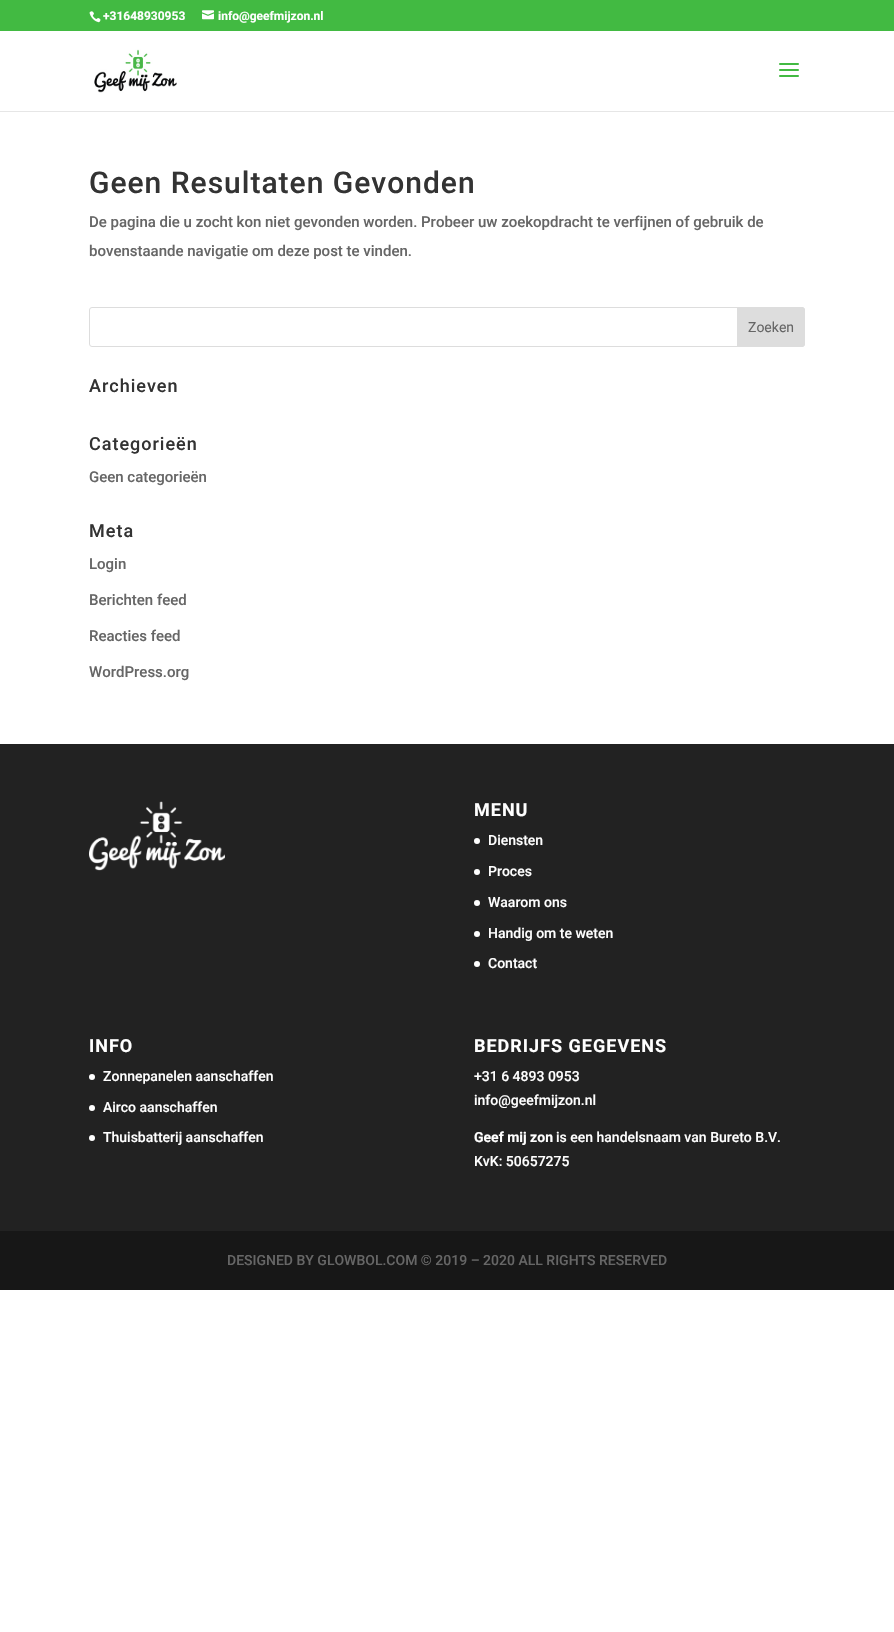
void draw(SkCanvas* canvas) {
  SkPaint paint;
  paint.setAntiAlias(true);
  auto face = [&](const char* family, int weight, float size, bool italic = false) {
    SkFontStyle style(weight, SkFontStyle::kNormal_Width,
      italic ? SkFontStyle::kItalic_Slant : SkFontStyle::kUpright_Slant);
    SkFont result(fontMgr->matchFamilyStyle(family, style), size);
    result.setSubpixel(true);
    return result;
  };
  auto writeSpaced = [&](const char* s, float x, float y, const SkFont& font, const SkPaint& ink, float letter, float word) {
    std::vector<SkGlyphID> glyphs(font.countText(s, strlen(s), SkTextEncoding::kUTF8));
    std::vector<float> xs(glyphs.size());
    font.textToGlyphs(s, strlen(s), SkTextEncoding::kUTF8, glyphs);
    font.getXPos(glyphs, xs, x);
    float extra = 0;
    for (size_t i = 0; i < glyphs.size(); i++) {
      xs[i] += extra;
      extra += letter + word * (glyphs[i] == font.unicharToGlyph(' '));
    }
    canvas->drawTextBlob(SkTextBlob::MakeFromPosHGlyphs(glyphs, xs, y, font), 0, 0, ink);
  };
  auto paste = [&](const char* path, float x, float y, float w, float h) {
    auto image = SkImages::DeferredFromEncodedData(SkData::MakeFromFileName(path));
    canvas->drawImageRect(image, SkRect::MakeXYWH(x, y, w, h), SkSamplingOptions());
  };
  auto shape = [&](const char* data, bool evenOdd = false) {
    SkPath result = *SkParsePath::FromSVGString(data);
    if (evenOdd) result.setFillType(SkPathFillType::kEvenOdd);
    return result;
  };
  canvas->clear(0xffffffff);
  paint.setColor(0xff42ba42);
  canvas->drawRect(SkRect::MakeXYWH(0, 0, 894, 31), paint);
  paste("img/1.png", 89, 11, 12, 12);
  paste("img/2.png", 202, 10, 12, 10);
  paint.setColor(0xffe6e6e6);
  canvas->drawRect(SkRect::MakeXYWH(0, 111, 894, 1), paint);
  paste("img/3.png", 94, 49, 83, 44);
  paste("img/4.png", 779, 63, 20, 14);
  paint.setStroke(true);
  paint.setStrokeWidth(1);
  paint.setColor(0xffdddddd);
  canvas->drawRoundRect(SkRect::MakeXYWH(89.5f, 307.5f, 715, 39), 2.5f, 2.5f, paint);
  paint.setStroke(false);
  canvas->drawPath(shape("M737.5 307.5H802C803.5 307.5 804.5 308.5 804.5 310V344C804.5 345.5 803.5 346.5 802 346.5H737.5Z"), paint);
  paint.setStroke(true);
  canvas->drawPath(shape("M737.5 307.5H802C803.5 307.5 804.5 308.5 804.5 310V344C804.5 345.5 803.5 346.5 802 346.5H737.5Z"), paint);
  paint.setStroke(false);
  paint.setColor(0xff222222);
  canvas->drawRect(SkRect::MakeXYWH(0, 744, 894, 487), paint);
  paste("img/5.png", 89, 801, 136, 70);
  paint.setColor(0xffffffff);
  canvas->drawCircle(477, 841, 3, paint);
  canvas->drawCircle(477, 872, 3, paint);
  canvas->drawCircle(477, 903, 3, paint);
  canvas->drawCircle(477, 934, 3, paint);
  canvas->drawCircle(477, 964, 3, paint);
  canvas->drawCircle(92, 1077, 3, paint);
  canvas->drawCircle(92, 1108, 3, paint);
  canvas->drawCircle(92, 1138, 3, paint);
  paint.setColor(0xff171717);
  canvas->drawRect(SkRect::MakeXYWH(0, 1231, 894, 59), paint);
  auto f0 = face("Roboto", 700, 12);
  paint.setColor(0xffffffff);
  canvas->drawString("+31648930953", 103, 20, f0, paint);
  canvas->drawString("info@geefmijzon.nl", 218, 20, f0, paint);
  auto f1 = face("Roboto", 500, 30);
  paint.setColor(0xff333333);
  writeSpaced("Geen Resultaten Gevonden", 89, 193, f1, paint, 1, 0);
  auto f2 = face("Roboto", 500, 15);
  paint.setColor(0xff666666);
  canvas->drawString("De pagina die u zocht kon niet gevonden worden. Probeer uw zoekopdracht te verfijnen of gebruik de", 89, 227, f2, paint);
  canvas->drawString("bovenstaande navigatie om deze post te vinden.", 89, 256, f2, paint);
  auto f3 = face("Roboto", 400, 14);
  canvas->drawString("Zoeken", 748, 332, f3, paint);
  auto f4 = face("Roboto", 500, 18);
  paint.setColor(0xff333333);
  writeSpaced("Archieven", 89, 392, f4, paint, 1, 0);
  writeSpaced("Categorieën", 89, 450, f4, paint, 1, 0);
  paint.setColor(0xff666666);
  canvas->drawString("Geen categorieën", 89, 482, f2, paint);
  paint.setColor(0xff333333);
  writeSpaced("Meta", 89, 537, f4, paint, 1, 0);
  paint.setColor(0xff666666);
  {
    const struct { const char* s; float x, y; } items[] = {
      {"Login", 89, 569},
      {"Berichten feed", 89, 605},
      {"Reacties feed", 89, 641},
      {"WordPress.org", 89, 677},
    };
    for (auto [s, x, y] : items) {
      canvas->drawString(s, x, y, f2, paint);
    }
  }
  auto f5 = face("Roboto", 700, 18);
  paint.setColor(0xffffffff);
  writeSpaced("MENU", 474, 816, f5, paint, 1, 0);
  auto f6 = face("Roboto", 500, 14);
  {
    const struct { const char* s; float x, y; } items[] = {
      {"Diensten", 488, 845},
      {"Proces", 488, 876},
      {"Waarom ons", 488, 907},
      {"Handig om te weten", 488, 938},
      {"Contact", 488, 968},
    };
    for (auto [s, x, y] : items) {
      canvas->drawString(s, x, y, f6, paint);
    }
  }
  writeSpaced("INFO", 89, 1052, f5, paint, 1, 0);
  {
    const struct { const char* s; float x, y; } items[] = {
      {"Zonnepanelen aanschaffen", 103, 1081},
      {"Airco aanschaffen", 103, 1112},
      {"Thuisbatterij aanschaffen", 103, 1142},
    };
    for (auto [s, x, y] : items) {
      canvas->drawString(s, x, y, f6, paint);
    }
  }
  writeSpaced("BEDRIJFS GEGEVENS", 474, 1052, f5, paint, 1, 0);
  canvas->drawString("+31 6 4893 0953", 474, 1081, f6, paint);
  canvas->drawString("info@geefmijzon.nl", 474, 1105, f6, paint);
  auto f7 = face("Roboto", 700, 14);
  canvas->drawString("Geef mij zon", 474, 1142, f7, paint);
  canvas->drawString("is een handelsnaam van Bureto B.V.", 556, 1142, f6, paint);
  canvas->drawString("KvK: 50657275", 474, 1166, f6, paint);
  paint.setColor(0xff666666);
  canvas->drawString("DESIGNED BY GLOWBOL.COM © 2019 – 2020 ALL RIGHTS RESERVED", 227, 1265, f6, paint);
}
